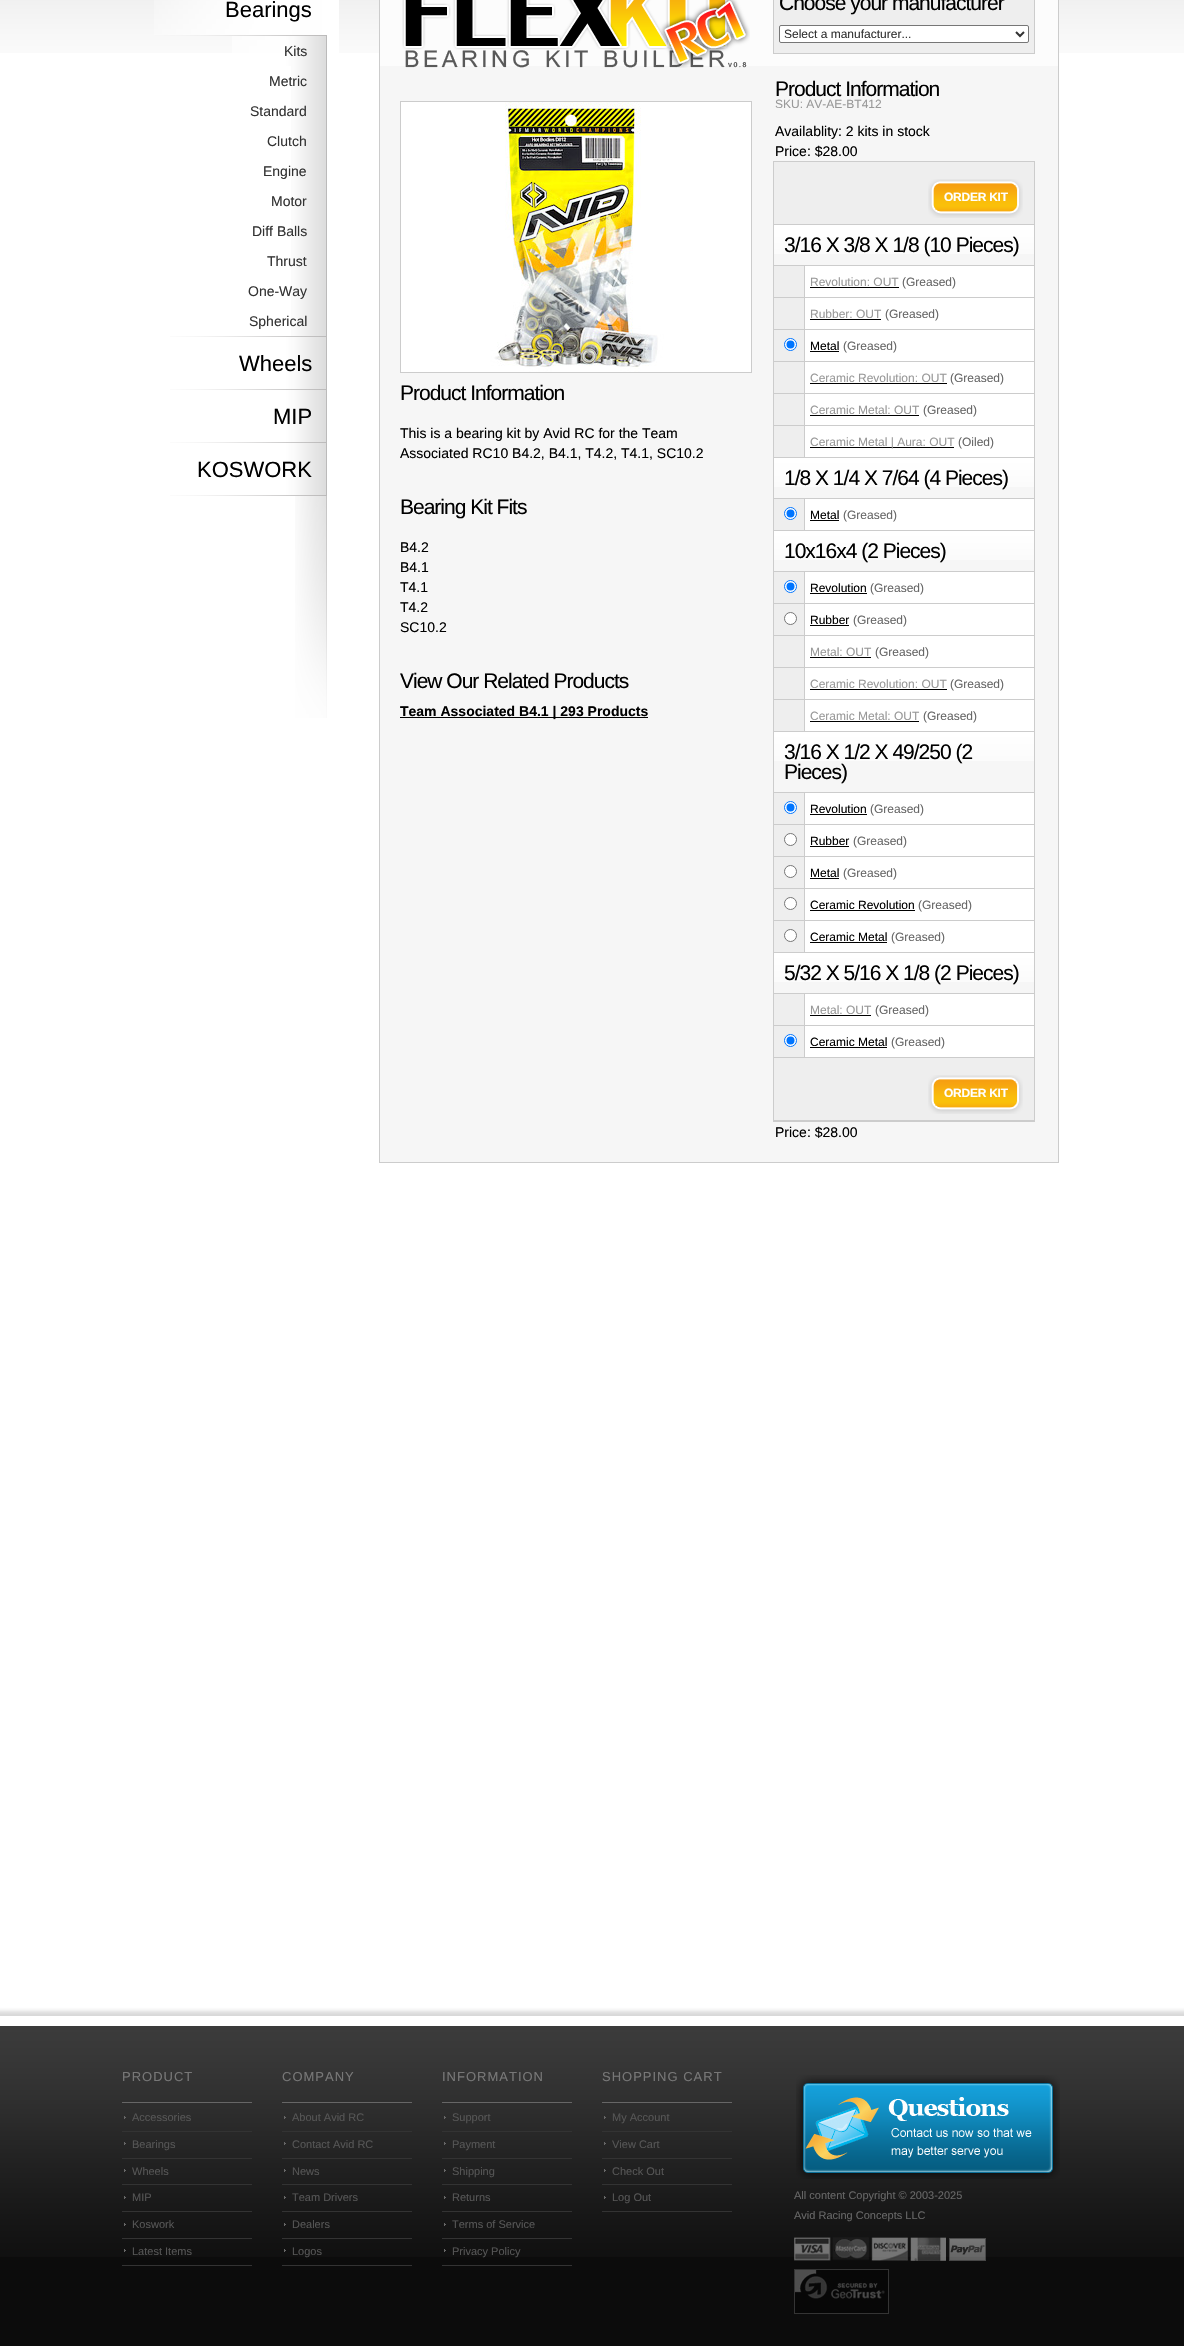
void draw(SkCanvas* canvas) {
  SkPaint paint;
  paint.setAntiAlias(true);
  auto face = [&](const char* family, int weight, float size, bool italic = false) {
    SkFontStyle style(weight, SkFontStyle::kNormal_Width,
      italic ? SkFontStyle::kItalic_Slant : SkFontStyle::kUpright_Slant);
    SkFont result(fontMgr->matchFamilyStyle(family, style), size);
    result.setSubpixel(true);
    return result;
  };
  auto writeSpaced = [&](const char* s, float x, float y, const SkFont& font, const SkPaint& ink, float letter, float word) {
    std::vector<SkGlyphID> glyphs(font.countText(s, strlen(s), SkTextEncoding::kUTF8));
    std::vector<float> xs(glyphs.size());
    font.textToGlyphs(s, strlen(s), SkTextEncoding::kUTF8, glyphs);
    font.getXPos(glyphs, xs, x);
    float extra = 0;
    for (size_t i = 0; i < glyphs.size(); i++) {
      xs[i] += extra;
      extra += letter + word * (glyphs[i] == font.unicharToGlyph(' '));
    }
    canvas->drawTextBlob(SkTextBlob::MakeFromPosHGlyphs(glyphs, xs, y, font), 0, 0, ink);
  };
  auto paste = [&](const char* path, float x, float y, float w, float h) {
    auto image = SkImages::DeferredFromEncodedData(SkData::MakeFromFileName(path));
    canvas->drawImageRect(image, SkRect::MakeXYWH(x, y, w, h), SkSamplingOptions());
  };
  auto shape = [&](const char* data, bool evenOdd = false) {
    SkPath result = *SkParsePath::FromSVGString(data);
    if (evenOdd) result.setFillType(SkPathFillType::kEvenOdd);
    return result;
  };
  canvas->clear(0xffffffff);
  paste("img/1.png", 0, 0, 1184, 53);
  paste("img/2.png", 154, 0, 173, 36);
  paste("img/3.png", 232, 36, 95, 30);
  paste("img/4.png", 291, 66, 36, 30);
  paste("img/4.png", 291, 96, 36, 30);
  paste("img/4.png", 291, 126, 36, 30);
  paste("img/4.png", 291, 156, 36, 30);
  paste("img/4.png", 291, 186, 36, 30);
  paste("img/4.png", 291, 216, 36, 30);
  paste("img/4.png", 291, 246, 36, 30);
  paste("img/4.png", 291, 276, 36, 30);
  paste("img/4.png", 291, 306, 36, 30);
  paste("img/5.png", 170, 336, 157, 1);
  paste("img/6.png", 170, 337, 157, 53);
  paste("img/6.png", 170, 390, 157, 53);
  paste("img/6.png", 170, 443, 157, 53);
  paste("img/7.png", 295, 496, 32, 222);
  {
    const struct { float x, y, w, h; SkColor color; } items[] = {
      {327, 0, 12, 53, 0xffffffff},
      {380, 66, 678, 1096, 0xfff6f6f6},
      {380, 0, 678, 66, 0xfffcfcfc},
    };
    for (auto [x, y, w, h, color] : items) {
      paint.setColor(color);
      canvas->drawRect(SkRect::MakeXYWH(x, y, w, h), paint);
    }
  }
  paint.setStroke(true);
  paint.setStrokeWidth(1);
  paint.setColor(0xffcccccc);
  canvas->drawRect(SkRect::MakeXYWH(379.5f, -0.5f, 679, 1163), paint);
  canvas->drawRect(SkRect::MakeXYWH(773.5f, -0.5f, 261, 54), paint);
  paint.setStroke(false);
  paint.setColor(0xffeeeeee);
  canvas->drawRect(SkRect::MakeXYWH(774, 0, 260, 53), paint);
  paint.setColor(0xffffffff);
  canvas->drawRoundRect(SkRect::MakeXYWH(779.5f, 25.5f, 249, 17), 1.5f, 1.5f, paint);
  paint.setStroke(true);
  paint.setColor(0xff767676);
  canvas->drawRoundRect(SkRect::MakeXYWH(779.5f, 25.5f, 249, 17), 1.5f, 1.5f, paint);
  paint.setStrokeWidth(2);
  paint.setColor(0xff333333);
  canvas->drawPath(shape("M1016 32L1020 36L1024 32"), paint);
  paste("img/8.png", 402, 0, 348, 68);
  paint.setStrokeWidth(1);
  paint.setColor(0xffcccccc);
  canvas->drawRect(SkRect::MakeXYWH(400.5f, 101.5f, 351, 271), paint);
  paste("img/9.png", 401, 102, 350, 270);
  paint.setStroke(false);
  paint.setColor(0xff000000);
  canvas->drawRect(SkRect::MakeXYWH(400, 717, 248, 1), paint);
  paint.setStroke(true);
  paint.setColor(0xffcccccc);
  canvas->drawRect(SkRect::MakeXYWH(773.5f, 161.5f, 261, 960), paint);
  paint.setStroke(false);
  paint.setColor(0xffeeeeee);
  canvas->drawRect(SkRect::MakeXYWH(774, 162, 260, 62), paint);
  paint.setColor(0xffcccccc);
  canvas->drawRect(SkRect::MakeXYWH(774, 224, 260, 1), paint);
  paste("img/10.png", 928, 179, 14, 39);
  paste("img/11.png", 942, 179, 81, 39);
  paste("img/12.png", 774, 225, 260, 29);
  {
    const struct { float x, y, w, h; SkColor color; } items[] = {
      {774, 265, 260, 1, 0xffcccccc},
      {774, 266, 30, 31, 0xffeeeeee},
      {774, 297, 260, 1, 0xffcccccc},
      {805, 266, 229, 31, 0xffffffff},
      {804, 266, 1, 31, 0xffcccccc},
      {810, 287, 89, 1, 0xff000000},
      {774, 298, 30, 31, 0xffeeeeee},
      {774, 329, 260, 1, 0xffcccccc},
      {805, 298, 229, 31, 0xffffffff},
      {804, 298, 1, 31, 0xffcccccc},
      {810, 319, 71, 1, 0xff000000},
      {774, 330, 30, 31, 0xffeeeeee},
      {774, 361, 260, 1, 0xffcccccc},
    };
    for (auto [x, y, w, h, color] : items) {
      paint.setColor(color);
      canvas->drawRect(SkRect::MakeXYWH(x, y, w, h), paint);
    }
  }
  paint.setColor(0xffffffff);
  canvas->drawCircle(790.5f, 344.5f, 6, paint);
  paint.setStroke(true);
  paint.setColor(0xff0075ff);
  canvas->drawCircle(790.5f, 344.5f, 6, paint);
  paint.setStroke(false);
  canvas->drawCircle(790.5f, 344.5f, 4, paint);
  {
    const struct { float x, y, w, h; SkColor color; } items[] = {
      {805, 330, 229, 31, 0xffffffff},
      {804, 330, 1, 31, 0xffcccccc},
      {810, 351, 29, 1, 0xff000000},
      {774, 362, 30, 31, 0xffeeeeee},
      {774, 393, 260, 1, 0xffcccccc},
      {805, 362, 229, 31, 0xffffffff},
      {804, 362, 1, 31, 0xffcccccc},
      {810, 383, 137, 1, 0xff000000},
      {774, 394, 30, 31, 0xffeeeeee},
      {774, 425, 260, 1, 0xffcccccc},
      {805, 394, 229, 31, 0xffffffff},
      {804, 394, 1, 31, 0xffcccccc},
      {810, 415, 109, 1, 0xff000000},
      {774, 426, 30, 31, 0xffeeeeee},
      {774, 457, 260, 1, 0xffcccccc},
      {805, 426, 229, 31, 0xffffffff},
      {804, 426, 1, 31, 0xffcccccc},
      {810, 447, 144, 1, 0xff000000},
    };
    for (auto [x, y, w, h, color] : items) {
      paint.setColor(color);
      canvas->drawRect(SkRect::MakeXYWH(x, y, w, h), paint);
    }
  }
  paste("img/12.png", 774, 458, 260, 29);
  {
    const struct { float x, y, w, h; SkColor color; } items[] = {
      {774, 498, 260, 1, 0xffcccccc},
      {774, 499, 30, 31, 0xffeeeeee},
      {774, 530, 260, 1, 0xffcccccc},
    };
    for (auto [x, y, w, h, color] : items) {
      paint.setColor(color);
      canvas->drawRect(SkRect::MakeXYWH(x, y, w, h), paint);
    }
  }
  paint.setColor(0xffffffff);
  canvas->drawCircle(790.5f, 513.5f, 6, paint);
  paint.setStroke(true);
  paint.setColor(0xff0075ff);
  canvas->drawCircle(790.5f, 513.5f, 6, paint);
  paint.setStroke(false);
  canvas->drawCircle(790.5f, 513.5f, 4, paint);
  {
    const struct { float x, y, w, h; SkColor color; } items[] = {
      {805, 499, 229, 31, 0xffffffff},
      {804, 499, 1, 31, 0xffcccccc},
      {810, 520, 29, 1, 0xff000000},
    };
    for (auto [x, y, w, h, color] : items) {
      paint.setColor(color);
      canvas->drawRect(SkRect::MakeXYWH(x, y, w, h), paint);
    }
  }
  paste("img/12.png", 774, 531, 260, 29);
  {
    const struct { float x, y, w, h; SkColor color; } items[] = {
      {774, 571, 260, 1, 0xffcccccc},
      {774, 572, 30, 31, 0xffeeeeee},
      {774, 603, 260, 1, 0xffcccccc},
    };
    for (auto [x, y, w, h, color] : items) {
      paint.setColor(color);
      canvas->drawRect(SkRect::MakeXYWH(x, y, w, h), paint);
    }
  }
  paint.setColor(0xffffffff);
  canvas->drawCircle(790.5f, 586.5f, 6, paint);
  paint.setStroke(true);
  paint.setColor(0xff0075ff);
  canvas->drawCircle(790.5f, 586.5f, 6, paint);
  paint.setStroke(false);
  canvas->drawCircle(790.5f, 586.5f, 4, paint);
  {
    const struct { float x, y, w, h; SkColor color; } items[] = {
      {805, 572, 229, 31, 0xffffffff},
      {804, 572, 1, 31, 0xffcccccc},
      {810, 593, 57, 1, 0xff000000},
      {774, 604, 30, 31, 0xffeeeeee},
      {774, 635, 260, 1, 0xffcccccc},
    };
    for (auto [x, y, w, h, color] : items) {
      paint.setColor(color);
      canvas->drawRect(SkRect::MakeXYWH(x, y, w, h), paint);
    }
  }
  paint.setColor(0xffffffff);
  canvas->drawCircle(790.5f, 618.5f, 6, paint);
  paint.setStroke(true);
  paint.setColor(0xff767676);
  canvas->drawCircle(790.5f, 618.5f, 6, paint);
  paint.setStroke(false);
  {
    const struct { float x, y, w, h; SkColor color; } items[] = {
      {805, 604, 229, 31, 0xffffffff},
      {804, 604, 1, 31, 0xffcccccc},
      {810, 625, 39, 1, 0xff000000},
      {774, 636, 30, 31, 0xffeeeeee},
      {774, 667, 260, 1, 0xffcccccc},
      {805, 636, 229, 31, 0xffffffff},
      {804, 636, 1, 31, 0xffcccccc},
      {810, 657, 61, 1, 0xff000000},
      {774, 668, 30, 31, 0xffeeeeee},
      {774, 699, 260, 1, 0xffcccccc},
      {805, 668, 229, 31, 0xffffffff},
      {804, 668, 1, 31, 0xffcccccc},
      {810, 689, 137, 1, 0xff000000},
      {774, 700, 30, 31, 0xffeeeeee},
      {774, 731, 260, 1, 0xffcccccc},
      {805, 700, 229, 31, 0xffffffff},
      {804, 700, 1, 31, 0xffcccccc},
      {810, 721, 109, 1, 0xff000000},
    };
    for (auto [x, y, w, h, color] : items) {
      paint.setColor(color);
      canvas->drawRect(SkRect::MakeXYWH(x, y, w, h), paint);
    }
  }
  paste("img/12.png", 774, 732, 260, 29);
  {
    const struct { float x, y, w, h; SkColor color; } items[] = {
      {774, 792, 260, 1, 0xffcccccc},
      {774, 793, 30, 31, 0xffeeeeee},
      {774, 824, 260, 1, 0xffcccccc},
    };
    for (auto [x, y, w, h, color] : items) {
      paint.setColor(color);
      canvas->drawRect(SkRect::MakeXYWH(x, y, w, h), paint);
    }
  }
  paint.setColor(0xffffffff);
  canvas->drawCircle(790.5f, 807.5f, 6, paint);
  paint.setStroke(true);
  paint.setColor(0xff0075ff);
  canvas->drawCircle(790.5f, 807.5f, 6, paint);
  paint.setStroke(false);
  canvas->drawCircle(790.5f, 807.5f, 4, paint);
  {
    const struct { float x, y, w, h; SkColor color; } items[] = {
      {805, 793, 229, 31, 0xffffffff},
      {804, 793, 1, 31, 0xffcccccc},
      {810, 814, 57, 1, 0xff000000},
      {774, 825, 30, 31, 0xffeeeeee},
      {774, 856, 260, 1, 0xffcccccc},
    };
    for (auto [x, y, w, h, color] : items) {
      paint.setColor(color);
      canvas->drawRect(SkRect::MakeXYWH(x, y, w, h), paint);
    }
  }
  paint.setColor(0xffffffff);
  canvas->drawCircle(790.5f, 839.5f, 6, paint);
  paint.setStroke(true);
  paint.setColor(0xff767676);
  canvas->drawCircle(790.5f, 839.5f, 6, paint);
  paint.setStroke(false);
  {
    const struct { float x, y, w, h; SkColor color; } items[] = {
      {805, 825, 229, 31, 0xffffffff},
      {804, 825, 1, 31, 0xffcccccc},
      {810, 846, 39, 1, 0xff000000},
      {774, 857, 30, 31, 0xffeeeeee},
      {774, 888, 260, 1, 0xffcccccc},
    };
    for (auto [x, y, w, h, color] : items) {
      paint.setColor(color);
      canvas->drawRect(SkRect::MakeXYWH(x, y, w, h), paint);
    }
  }
  paint.setColor(0xffffffff);
  canvas->drawCircle(790.5f, 871.5f, 6, paint);
  paint.setStroke(true);
  paint.setColor(0xff767676);
  canvas->drawCircle(790.5f, 871.5f, 6, paint);
  paint.setStroke(false);
  {
    const struct { float x, y, w, h; SkColor color; } items[] = {
      {805, 857, 229, 31, 0xffffffff},
      {804, 857, 1, 31, 0xffcccccc},
      {810, 878, 29, 1, 0xff000000},
      {774, 889, 30, 31, 0xffeeeeee},
      {774, 920, 260, 1, 0xffcccccc},
    };
    for (auto [x, y, w, h, color] : items) {
      paint.setColor(color);
      canvas->drawRect(SkRect::MakeXYWH(x, y, w, h), paint);
    }
  }
  paint.setColor(0xffffffff);
  canvas->drawCircle(790.5f, 903.5f, 6, paint);
  paint.setStroke(true);
  paint.setColor(0xff767676);
  canvas->drawCircle(790.5f, 903.5f, 6, paint);
  paint.setStroke(false);
  {
    const struct { float x, y, w, h; SkColor color; } items[] = {
      {805, 889, 229, 31, 0xffffffff},
      {804, 889, 1, 31, 0xffcccccc},
      {810, 910, 105, 1, 0xff000000},
      {774, 921, 30, 31, 0xffeeeeee},
      {774, 952, 260, 1, 0xffcccccc},
    };
    for (auto [x, y, w, h, color] : items) {
      paint.setColor(color);
      canvas->drawRect(SkRect::MakeXYWH(x, y, w, h), paint);
    }
  }
  paint.setColor(0xffffffff);
  canvas->drawCircle(790.5f, 935.5f, 6, paint);
  paint.setStroke(true);
  paint.setColor(0xff767676);
  canvas->drawCircle(790.5f, 935.5f, 6, paint);
  paint.setStroke(false);
  {
    const struct { float x, y, w, h; SkColor color; } items[] = {
      {805, 921, 229, 31, 0xffffffff},
      {804, 921, 1, 31, 0xffcccccc},
      {810, 942, 77, 1, 0xff000000},
    };
    for (auto [x, y, w, h, color] : items) {
      paint.setColor(color);
      canvas->drawRect(SkRect::MakeXYWH(x, y, w, h), paint);
    }
  }
  paste("img/12.png", 774, 953, 260, 29);
  {
    const struct { float x, y, w, h; SkColor color; } items[] = {
      {774, 993, 260, 1, 0xffcccccc},
      {774, 994, 30, 31, 0xffeeeeee},
      {774, 1025, 260, 1, 0xffcccccc},
      {805, 994, 229, 31, 0xffffffff},
      {804, 994, 1, 31, 0xffcccccc},
      {810, 1015, 61, 1, 0xff000000},
      {774, 1026, 30, 31, 0xffeeeeee},
      {774, 1057, 260, 1, 0xffcccccc},
    };
    for (auto [x, y, w, h, color] : items) {
      paint.setColor(color);
      canvas->drawRect(SkRect::MakeXYWH(x, y, w, h), paint);
    }
  }
  paint.setColor(0xffffffff);
  canvas->drawCircle(790.5f, 1040.5f, 6, paint);
  paint.setStroke(true);
  paint.setColor(0xff0075ff);
  canvas->drawCircle(790.5f, 1040.5f, 6, paint);
  paint.setStroke(false);
  canvas->drawCircle(790.5f, 1040.5f, 4, paint);
  {
    const struct { float x, y, w, h; SkColor color; } items[] = {
      {805, 1026, 229, 31, 0xffffffff},
      {804, 1026, 1, 31, 0xffcccccc},
      {810, 1047, 77, 1, 0xff000000},
      {774, 1058, 260, 62, 0xffeeeeee},
      {774, 1120, 260, 1, 0xffcccccc},
    };
    for (auto [x, y, w, h, color] : items) {
      paint.setColor(color);
      canvas->drawRect(SkRect::MakeXYWH(x, y, w, h), paint);
    }
  }
  paste("img/10.png", 928, 1075, 14, 39);
  paste("img/11.png", 942, 1075, 81, 39);
  paint.setColor(0xff0c0c0c);
  canvas->drawRect(SkRect::MakeXYWH(0, 2257, 1184, 89), paint);
  paste("img/13.png", 0, 1996, 1184, 261);
  paint.setColor(0xff666666);
  canvas->drawRect(SkRect::MakeXYWH(122, 2102, 130, 1), paint);
  paint.setColor(0xff333333);
  canvas->drawRect(SkRect::MakeXYWH(122, 2131, 130, 1), paint);
  paste("img/14.png", 124, 2116, 2, 3);
  canvas->drawRect(SkRect::MakeXYWH(122, 2158, 130, 1), paint);
  paste("img/15.png", 124, 2142, 2, 3);
  canvas->drawRect(SkRect::MakeXYWH(122, 2184, 130, 1), paint);
  paste("img/16.png", 124, 2169, 2, 3);
  canvas->drawRect(SkRect::MakeXYWH(122, 2211, 130, 1), paint);
  paste("img/17.png", 124, 2196, 2, 3);
  canvas->drawRect(SkRect::MakeXYWH(122, 2238, 130, 1), paint);
  paste("img/18.png", 124, 2223, 2, 3);
  canvas->drawRect(SkRect::MakeXYWH(122, 2265, 130, 1), paint);
  paste("img/19.png", 124, 2249, 2, 3);
  paint.setColor(0xff666666);
  canvas->drawRect(SkRect::MakeXYWH(282, 2102, 130, 1), paint);
  paint.setColor(0xff333333);
  canvas->drawRect(SkRect::MakeXYWH(282, 2131, 130, 1), paint);
  paste("img/14.png", 284, 2116, 2, 3);
  canvas->drawRect(SkRect::MakeXYWH(282, 2158, 130, 1), paint);
  paste("img/15.png", 284, 2142, 2, 3);
  canvas->drawRect(SkRect::MakeXYWH(282, 2184, 130, 1), paint);
  paste("img/16.png", 284, 2169, 2, 3);
  canvas->drawRect(SkRect::MakeXYWH(282, 2211, 130, 1), paint);
  paste("img/17.png", 284, 2196, 2, 3);
  canvas->drawRect(SkRect::MakeXYWH(282, 2238, 130, 1), paint);
  paste("img/18.png", 284, 2223, 2, 3);
  canvas->drawRect(SkRect::MakeXYWH(282, 2265, 130, 1), paint);
  paste("img/19.png", 284, 2249, 2, 3);
  paint.setColor(0xff666666);
  canvas->drawRect(SkRect::MakeXYWH(442, 2102, 130, 1), paint);
  paint.setColor(0xff333333);
  canvas->drawRect(SkRect::MakeXYWH(442, 2131, 130, 1), paint);
  paste("img/14.png", 444, 2116, 2, 3);
  canvas->drawRect(SkRect::MakeXYWH(442, 2158, 130, 1), paint);
  paste("img/15.png", 444, 2142, 2, 3);
  canvas->drawRect(SkRect::MakeXYWH(442, 2184, 130, 1), paint);
  paste("img/16.png", 444, 2169, 2, 3);
  canvas->drawRect(SkRect::MakeXYWH(442, 2211, 130, 1), paint);
  paste("img/17.png", 444, 2196, 2, 3);
  canvas->drawRect(SkRect::MakeXYWH(442, 2238, 130, 1), paint);
  paste("img/18.png", 444, 2223, 2, 3);
  canvas->drawRect(SkRect::MakeXYWH(442, 2265, 130, 1), paint);
  paste("img/19.png", 444, 2249, 2, 3);
  paint.setColor(0xff666666);
  canvas->drawRect(SkRect::MakeXYWH(602, 2102, 130, 1), paint);
  paint.setColor(0xff333333);
  canvas->drawRect(SkRect::MakeXYWH(602, 2131, 130, 1), paint);
  paste("img/14.png", 604, 2116, 2, 3);
  canvas->drawRect(SkRect::MakeXYWH(602, 2158, 130, 1), paint);
  paste("img/15.png", 604, 2142, 2, 3);
  canvas->drawRect(SkRect::MakeXYWH(602, 2184, 130, 1), paint);
  paste("img/16.png", 604, 2169, 2, 3);
  canvas->drawRect(SkRect::MakeXYWH(602, 2211, 130, 1), paint);
  paste("img/17.png", 604, 2196, 2, 3);
  paste("img/20.png", 796, 2075, 264, 104);
  paste("img/21.png", 794, 2237, 192, 77);
  auto f0 = face("Liberation Sans", 400, 22);
  paint.setColor(0xff000000);
  canvas->drawString("Bearings", 225, 17, f0, paint);
  auto f1 = face("Liberation Sans", 400, 14);
  paint.setColor(0xff333333);
  {
    const struct { const char* s; float x, y; } items[] = {
      {"Kits", 284, 56},
      {"Metric", 269, 86},
      {"Standard", 250, 116},
      {"Clutch", 267, 146},
      {"Engine", 263, 176},
      {"Motor", 271, 206},
      {"Diff Balls", 252, 236},
      {"Thrust", 267, 266},
      {"One-Way", 248, 296},
      {"Spherical", 249, 326},
    };
    for (auto [s, x, y] : items) {
      canvas->drawString(s, x, y, f1, paint);
    }
  }
  paint.setColor(0xff000000);
  {
    const struct { const char* s; float x, y; } items[] = {
      {"Wheels", 239, 371},
      {"MIP", 273, 424},
      {"KOSWORK", 197, 477},
    };
    for (auto [s, x, y] : items) {
      canvas->drawString(s, x, y, f0, paint);
    }
  }
  auto f2 = face("Liberation Sans", 400, 21);
  writeSpaced("Choose your manufacturer", 779, 10, f2, paint, -1, 0);
  auto f3 = face("Liberation Sans", 400, 12);
  paint.setColor(0xff333333);
  canvas->drawString("Select a manufacturer...", 784, 38, f3, paint);
  paint.setColor(0xff000000);
  writeSpaced("Product Information", 400, 400, f2, paint, -1, 0);
  canvas->drawString("This is a bearing kit by Avid RC for the Team", 400, 438, f1, paint);
  canvas->drawString("Associated RC10 B4.2, B4.1, T4.2, T4.1, SC10.2", 400, 458, f1, paint);
  writeSpaced("Bearing Kit Fits", 400, 514, f2, paint, -1, 0);
  {
    const struct { const char* s; float x, y; } items[] = {
      {"B4.2", 400, 552},
      {"B4.1", 400, 572},
      {"T4.1", 400, 592},
      {"T4.2", 400, 612},
      {"SC10.2", 400, 632},
    };
    for (auto [s, x, y] : items) {
      canvas->drawString(s, x, y, f1, paint);
    }
  }
  writeSpaced("View Our Related Products", 400, 688, f2, paint, -1, 0);
  auto f4 = face("Liberation Sans", 700, 14);
  canvas->drawString("Team Associated B4.1 | 293 Products", 400, 716, f4, paint);
  writeSpaced("Product Information", 775, 96, f2, paint, -1, 0);
  paint.setColor(0xff999999);
  canvas->drawString("SKU: AV-AE-BT412", 775, 108, f3, paint);
  paint.setColor(0xff000000);
  canvas->drawString("Availablity: 2 kits in stock", 775, 136, f1, paint);
  canvas->drawString("Price: $28.00", 775, 156, f1, paint);
  auto f5 = face("Liberation Sans", 700, 12);
  paint.setColor(0xffffffff);
  writeSpaced("ORDER KIT", 944, 201, f5, paint, -0.25f, 0);
  paint.setColor(0xff000000);
  writeSpaced("3/16 X 3/8 X 1/8 (10 Pieces)", 784, 252, f2, paint, -1, 0);
  paint.setColor(0xff999999);
  canvas->drawString("Revolution: OUT", 810, 286, f3, paint);
  paint.setColor(0xff666666);
  canvas->drawString("(Greased)", 902, 286, f3, paint);
  paint.setColor(0xff999999);
  canvas->drawString("Rubber: OUT", 810, 318, f3, paint);
  paint.setColor(0xff666666);
  canvas->drawString("(Greased)", 885, 318, f3, paint);
  paint.setColor(0xff000000);
  canvas->drawString("Metal", 810, 350, f3, paint);
  paint.setColor(0xff666666);
  canvas->drawString("(Greased)", 843, 350, f3, paint);
  paint.setColor(0xff999999);
  canvas->drawString("Ceramic Revolution: OUT", 810, 382, f3, paint);
  paint.setColor(0xff666666);
  canvas->drawString("(Greased)", 950, 382, f3, paint);
  paint.setColor(0xff999999);
  canvas->drawString("Ceramic Metal: OUT", 810, 414, f3, paint);
  paint.setColor(0xff666666);
  canvas->drawString("(Greased)", 923, 414, f3, paint);
  paint.setColor(0xff999999);
  canvas->drawString("Ceramic Metal | Aura: OUT", 810, 446, f3, paint);
  paint.setColor(0xff666666);
  canvas->drawString("(Oiled)", 958, 446, f3, paint);
  paint.setColor(0xff000000);
  writeSpaced("1/8 X 1/4 X 7/64 (4 Pieces)", 784, 485, f2, paint, -1, 0);
  canvas->drawString("Metal", 810, 519, f3, paint);
  paint.setColor(0xff666666);
  canvas->drawString("(Greased)", 843, 519, f3, paint);
  paint.setColor(0xff000000);
  writeSpaced("10x16x4 (2 Pieces)", 784, 558, f2, paint, -1, 0);
  canvas->drawString("Revolution", 810, 592, f3, paint);
  paint.setColor(0xff666666);
  canvas->drawString("(Greased)", 870, 592, f3, paint);
  paint.setColor(0xff000000);
  canvas->drawString("Rubber", 810, 624, f3, paint);
  paint.setColor(0xff666666);
  canvas->drawString("(Greased)", 853, 624, f3, paint);
  paint.setColor(0xff999999);
  canvas->drawString("Metal: OUT", 810, 656, f3, paint);
  paint.setColor(0xff666666);
  canvas->drawString("(Greased)", 875, 656, f3, paint);
  paint.setColor(0xff999999);
  canvas->drawString("Ceramic Revolution: OUT", 810, 688, f3, paint);
  paint.setColor(0xff666666);
  canvas->drawString("(Greased)", 950, 688, f3, paint);
  paint.setColor(0xff999999);
  canvas->drawString("Ceramic Metal: OUT", 810, 720, f3, paint);
  paint.setColor(0xff666666);
  canvas->drawString("(Greased)", 923, 720, f3, paint);
  paint.setColor(0xff000000);
  writeSpaced("3/16 X 1/2 X 49/250 (2", 784, 759, f2, paint, -1, 0);
  writeSpaced("Pieces)", 784, 779, f2, paint, -1, 0);
  canvas->drawString("Revolution", 810, 813, f3, paint);
  paint.setColor(0xff666666);
  canvas->drawString("(Greased)", 870, 813, f3, paint);
  paint.setColor(0xff000000);
  canvas->drawString("Rubber", 810, 845, f3, paint);
  paint.setColor(0xff666666);
  canvas->drawString("(Greased)", 853, 845, f3, paint);
  paint.setColor(0xff000000);
  canvas->drawString("Metal", 810, 877, f3, paint);
  paint.setColor(0xff666666);
  canvas->drawString("(Greased)", 843, 877, f3, paint);
  paint.setColor(0xff000000);
  canvas->drawString("Ceramic Revolution", 810, 909, f3, paint);
  paint.setColor(0xff666666);
  canvas->drawString("(Greased)", 918, 909, f3, paint);
  paint.setColor(0xff000000);
  canvas->drawString("Ceramic Metal", 810, 941, f3, paint);
  paint.setColor(0xff666666);
  canvas->drawString("(Greased)", 891, 941, f3, paint);
  paint.setColor(0xff000000);
  writeSpaced("5/32 X 5/16 X 1/8 (2 Pieces)", 784, 980, f2, paint, -1, 0);
  paint.setColor(0xff999999);
  canvas->drawString("Metal: OUT", 810, 1014, f3, paint);
  paint.setColor(0xff666666);
  canvas->drawString("(Greased)", 875, 1014, f3, paint);
  paint.setColor(0xff000000);
  canvas->drawString("Ceramic Metal", 810, 1046, f3, paint);
  paint.setColor(0xff666666);
  canvas->drawString("(Greased)", 891, 1046, f3, paint);
  paint.setColor(0xffffffff);
  writeSpaced("ORDER KIT", 944, 1097, f5, paint, -0.25f, 0);
  paint.setColor(0xff000000);
  canvas->drawString("Price: $28.00", 775, 1137, f1, paint);
  auto f6 = face("Liberation Sans", 400, 13);
  paint.setColor(0xff777777);
  writeSpaced("PRODUCT", 122, 2081, f6, paint, 1, 0);
  auto f7 = face("Liberation Sans", 400, 11);
  paint.setColor(0xff555555);
  {
    const struct { const char* s; float x, y; } items[] = {
      {"Accessories", 132, 2121},
      {"Bearings", 132, 2148},
      {"Wheels", 132, 2175},
      {"MIP", 132, 2201},
      {"Koswork", 132, 2228},
      {"Latest Items", 132, 2255},
    };
    for (auto [s, x, y] : items) {
      canvas->drawString(s, x, y, f7, paint);
    }
  }
  paint.setColor(0xff777777);
  writeSpaced("COMPANY", 282, 2081, f6, paint, 1, 0);
  paint.setColor(0xff555555);
  {
    const struct { const char* s; float x, y; } items[] = {
      {"About Avid RC", 292, 2121},
      {"Contact Avid RC", 292, 2148},
      {"News", 292, 2175},
      {"Team Drivers", 292, 2201},
      {"Dealers", 292, 2228},
      {"Logos", 292, 2255},
    };
    for (auto [s, x, y] : items) {
      canvas->drawString(s, x, y, f7, paint);
    }
  }
  paint.setColor(0xff777777);
  writeSpaced("INFORMATION", 442, 2081, f6, paint, 1, 0);
  paint.setColor(0xff555555);
  {
    const struct { const char* s; float x, y; } items[] = {
      {"Support", 452, 2121},
      {"Payment", 452, 2148},
      {"Shipping", 452, 2175},
      {"Returns", 452, 2201},
      {"Terms of Service", 452, 2228},
      {"Privacy Policy", 452, 2255},
    };
    for (auto [s, x, y] : items) {
      canvas->drawString(s, x, y, f7, paint);
    }
  }
  paint.setColor(0xff777777);
  writeSpaced("SHOPPING CART", 602, 2081, f6, paint, 1, 0);
  paint.setColor(0xff555555);
  {
    const struct { const char* s; float x, y; } items[] = {
      {"My Account", 612, 2121},
      {"View Cart", 612, 2148},
      {"Check Out", 612, 2175},
      {"Log Out", 612, 2201},
    };
    for (auto [s, x, y] : items) {
      canvas->drawString(s, x, y, f7, paint);
    }
  }
  paint.setColor(0xff666666);
  canvas->drawString("All content Copyright © 2003-2025", 794, 2199, f7, paint);
  canvas->drawString("Avid Racing Concepts LLC", 794, 2219, f7, paint);
}
